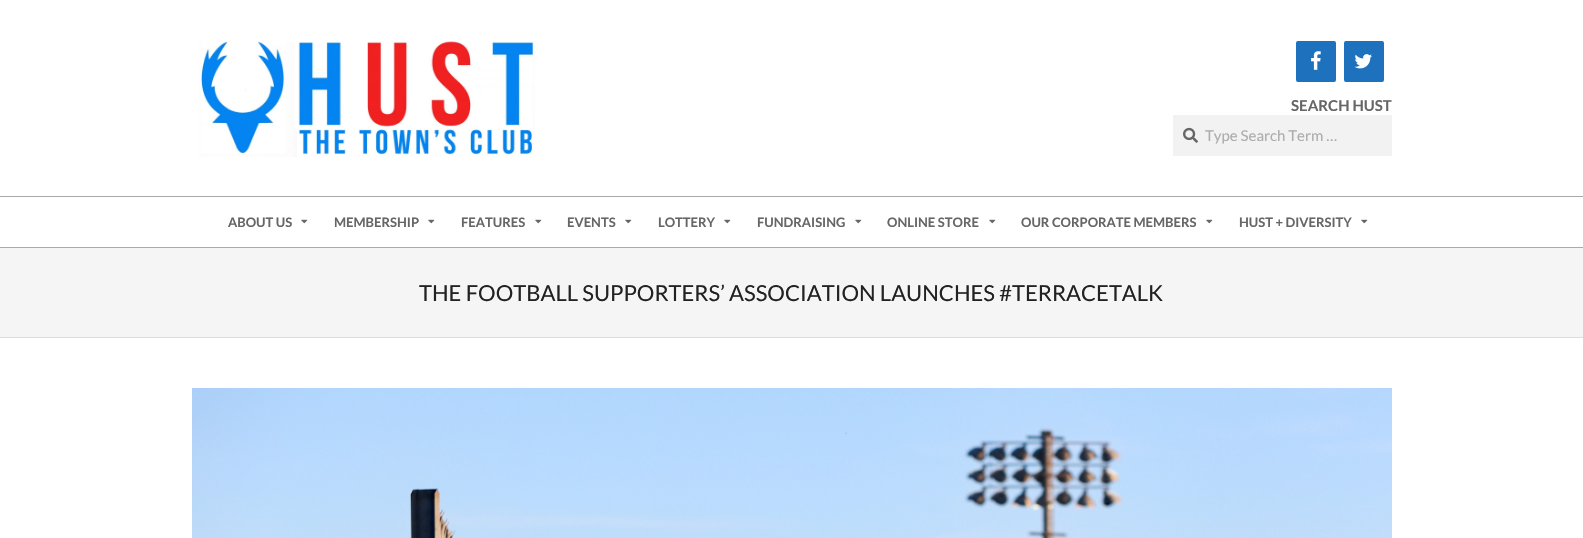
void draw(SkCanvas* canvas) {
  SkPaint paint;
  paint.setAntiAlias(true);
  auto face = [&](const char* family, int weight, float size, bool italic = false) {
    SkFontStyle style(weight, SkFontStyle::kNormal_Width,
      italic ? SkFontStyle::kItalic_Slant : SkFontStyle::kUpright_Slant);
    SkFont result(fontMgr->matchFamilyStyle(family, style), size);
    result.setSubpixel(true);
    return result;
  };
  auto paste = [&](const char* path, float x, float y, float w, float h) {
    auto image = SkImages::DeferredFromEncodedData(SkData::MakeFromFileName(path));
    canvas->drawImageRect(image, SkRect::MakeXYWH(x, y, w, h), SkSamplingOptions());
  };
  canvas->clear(0xffffffff);
  paint.setColor(0xffaaaaaa);
  canvas->drawRect(SkRect::MakeXYWH(0, 196, 1583, 1), paint);
  paste("img/1.png", 199, 41, 336, 116);
  paint.setColor(0xff1e72bd);
  canvas->drawRoundRect(SkRect::MakeXYWH(1296, 41, 40, 41), 2, 2, paint);
  paste("img/2.png", 1311, 51, 10, 19);
  canvas->drawRoundRect(SkRect::MakeXYWH(1344, 41, 40, 41), 2, 2, paint);
  paste("img/3.png", 1354, 54, 18, 15);
  paint.setColor(0xfff2f2f2);
  canvas->drawRect(SkRect::MakeXYWH(1173, 115, 219, 41), paint);
  paste("img/4.png", 1183, 127, 15, 16);
  paint.setColor(0xffaaaaaa);
  canvas->drawRect(SkRect::MakeXYWH(0, 247, 1583, 1), paint);
  paste("img/5.png", 301, 219, 7, 5);
  paste("img/5.png", 428, 219, 7, 5);
  paste("img/5.png", 535, 219, 7, 5);
  paste("img/5.png", 625, 219, 7, 5);
  paste("img/5.png", 724, 219, 7, 5);
  paste("img/5.png", 855, 219, 7, 5);
  paste("img/5.png", 989, 219, 7, 5);
  paste("img/5.png", 1206, 219, 7, 5);
  paste("img/5.png", 1361, 219, 7, 5);
  paint.setColor(0xfff5f5f5);
  canvas->drawRect(SkRect::MakeXYWH(0, 248, 1583, 89), paint);
  paint.setColor(0xffdddddd);
  canvas->drawRect(SkRect::MakeXYWH(0, 337, 1583, 1), paint);
  paste("img/6.png", 192, 388, 1200, 150);
  auto f0 = face("Lato", 700, 15);
  paint.setColor(0xff666666);
  canvas->drawString("SEARCH HUST", 1291, 111, f0, paint);
  auto f1 = face("Lato", 400, 15);
  paint.setColor(0xffacacac);
  canvas->drawString("Type Search Term …", 1205, 141, f1, paint);
  auto f2 = face("Lato", 700, 13);
  paint.setColor(0xff666666);
  {
    const struct { const char* s; float x, y; } items[] = {
      {"ABOUT US", 228, 227},
      {"MEMBERSHIP", 334, 227},
      {"FEATURES", 461, 227},
      {"EVENTS", 567, 227},
      {"LOTTERY", 658, 227},
      {"FUNDRAISING", 757, 227},
      {"ONLINE STORE", 887, 227},
      {"OUR CORPORATE MEMBERS", 1021, 227},
      {"HUST + DIVERSITY", 1239, 227},
    };
    for (auto [s, x, y] : items) {
      canvas->drawString(s, x, y, f2, paint);
    }
  }
  auto f3 = face("Lato", 400, 22);
  paint.setColor(0xff222222);
  canvas->drawString("THE FOOTBALL SUPPORTERS’ ASSOCIATION LAUNCHES #TERRACETALK", 419, 301, f3, paint);
}
